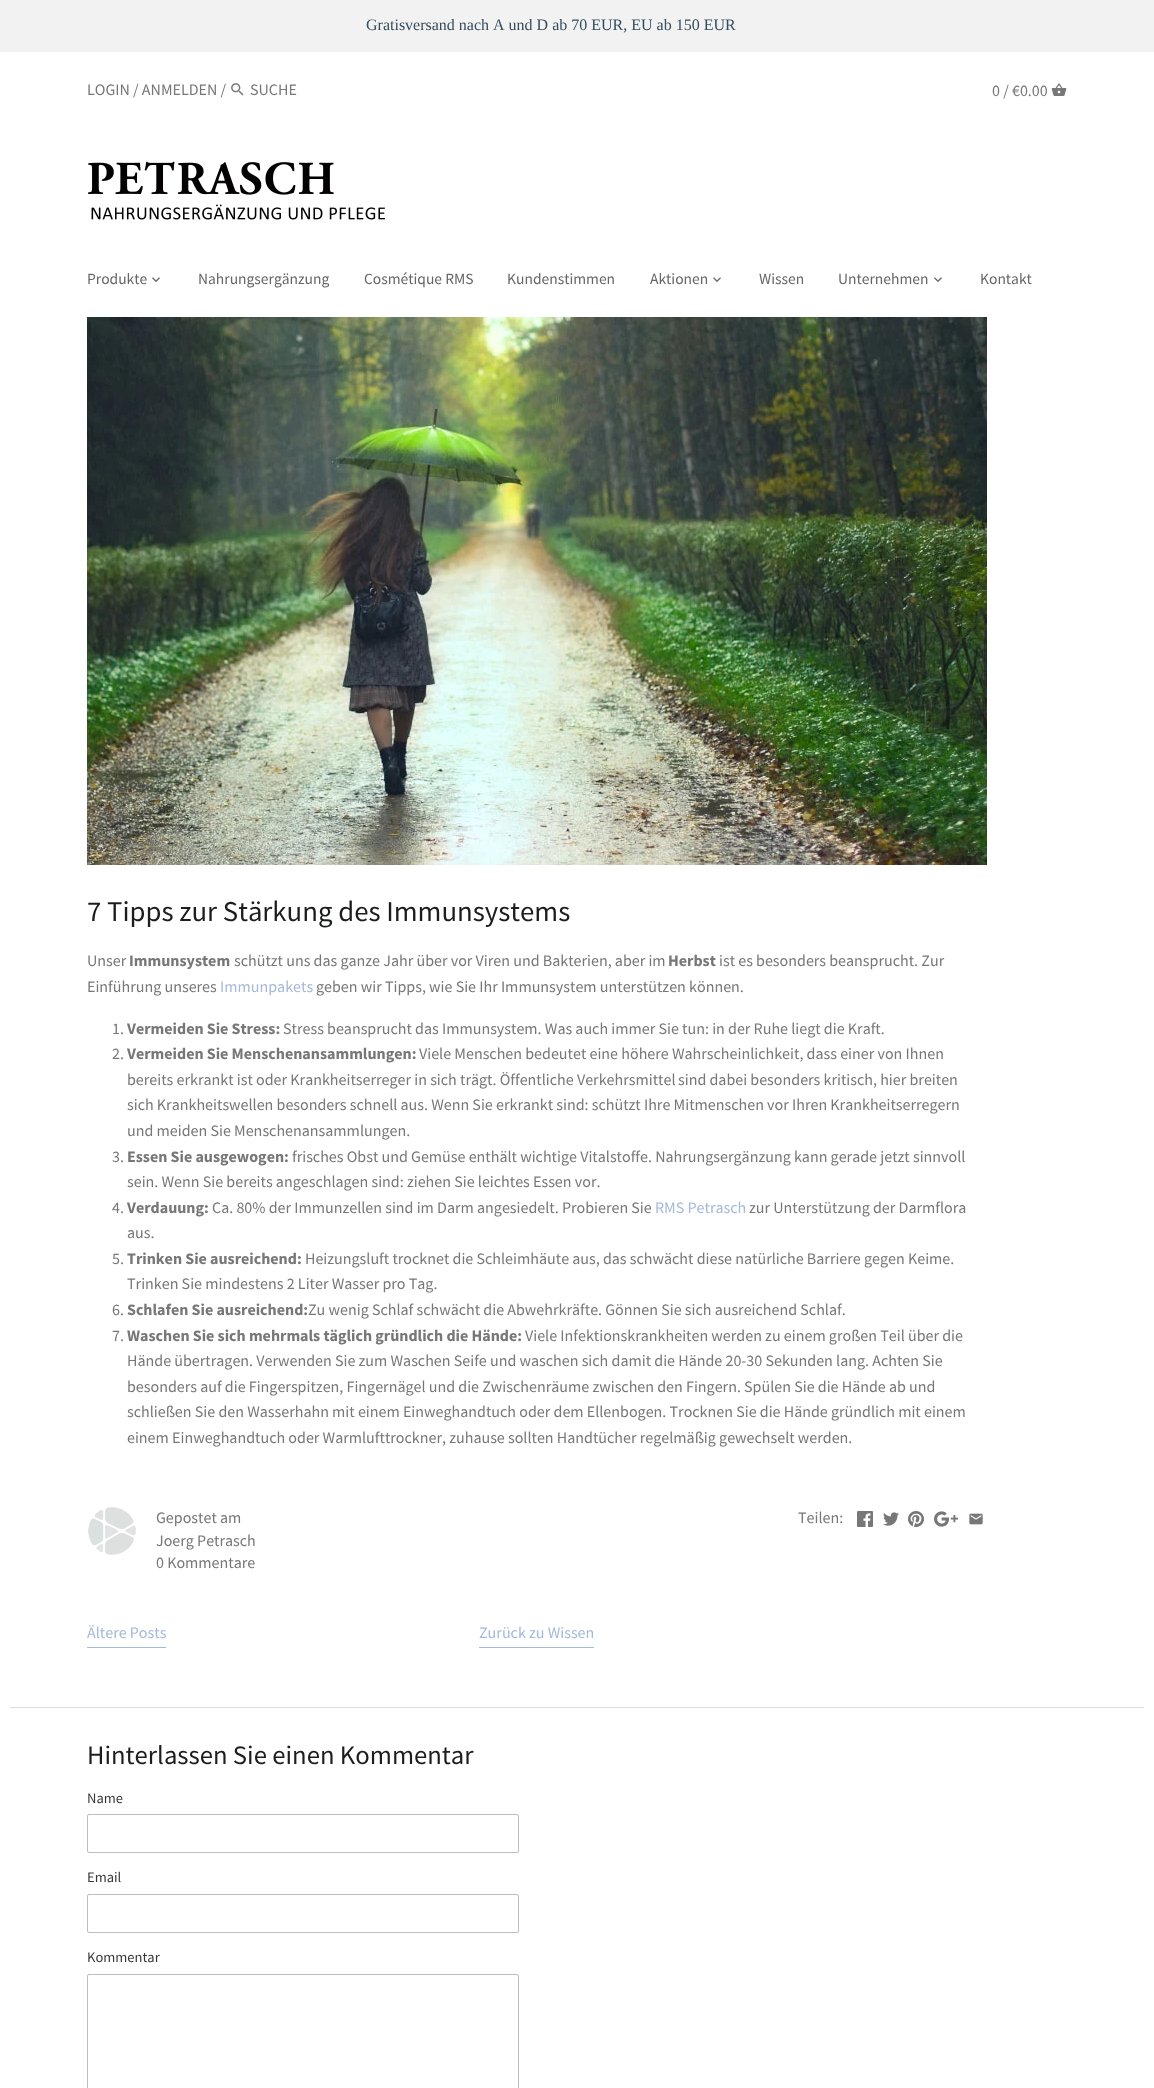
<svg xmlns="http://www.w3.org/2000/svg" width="1154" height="2088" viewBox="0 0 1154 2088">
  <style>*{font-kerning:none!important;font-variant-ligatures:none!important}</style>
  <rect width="100%" height="100%" fill="#fff"/>
  <path d="M0 0h1154v52H0z" fill="#f2f2f2"/>
  <image x="231" y="83" width="13" height="13" href="img/1.png"/>
  <image x="1051" y="83" width="16" height="13" href="img/2.png"/>
  <image x="88" y="161" width="297" height="59" href="img/3.png"/>
  <image x="152" y="277" width="8" height="5" href="img/4.png"/>
  <image x="713" y="277" width="8" height="5" href="img/4.png"/>
  <image x="934" y="277" width="8" height="5" href="img/4.png"/>
  <image x="87" y="317" width="900" height="548" href="img/5.png"/>
  <image x="88" y="1507" width="48" height="48" href="img/6.png"/>
  <image x="857" y="1511" width="16" height="16" href="img/7.png"/>
  <image x="883" y="1512" width="16" height="14" href="img/8.png"/>
  <image x="908" y="1511" width="16" height="16" href="img/9.png"/>
  <image x="934" y="1511" width="24" height="16" href="img/10.png"/>
  <image x="969" y="1513" width="14" height="12" href="img/11.png"/>
  <path d="M87 1647h79v1H87z" fill="#a5b9d8"/>
  <path d="M479 1647h115v1H479z" fill="#a5b9d8"/>
  <path d="M10 1707h1134v1H10z" fill="#ddd"/>
  <rect x="87.5" y="1814.5" width="431" height="38" rx="1.5" fill="none" stroke="#bcbcbc"/>
  <rect x="87.5" y="1894.5" width="431" height="38" rx="1.5" fill="none" stroke="#bcbcbc"/>
  <rect x="87.5" y="1974.5" width="431" height="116" rx="1.5" fill="none" stroke="#bcbcbc"/>
  <text x="366" y="30" font-family="Liberation Serif" font-size="16" fill="#354b5e">Gratisversand nach A und D ab 70 EUR, EU ab 150 EUR</text>
  <g font-family="Source Sans Pro" font-size="16" fill="#777">
    <text x="87" y="95">LOGIN / ANMELDEN /</text>
    <text x="250" y="95">SUCHE</text>
    <text x="992" y="96">0 / €0.00</text>
  </g>
  <g font-family="Source Sans Pro" font-size="15.5" fill="#666">
    <text x="87" y="284">Produkte</text>
    <text x="198" y="284">Nahrungsergänzung</text>
    <text x="364" y="284">Cosmétique RMS</text>
    <text x="507" y="284">Kundenstimmen</text>
    <text x="650" y="284">Aktionen</text>
    <text x="759" y="284">Wissen</text>
    <text x="838" y="284">Unternehmen</text>
    <text x="980" y="284">Kontakt</text>
  </g>
  <text x="87" y="921" font-family="Source Sans Pro" font-size="28.75" fill="#1c1d1d">7 Tipps zur Stärkung des Immunsystems</text>
  <text x="87" y="966" font-family="Source Sans Pro" font-size="16" fill="#777">Unser</text>
  <text x="129" y="966" font-family="Source Sans Pro" font-size="16" font-weight="bold" fill="#777">Immunsystem</text>
  <text x="234" y="966" font-family="Source Sans Pro" font-size="16" fill="#777">schützt uns das ganze Jahr über vor Viren und Bakterien, aber im</text>
  <text x="668" y="966" font-family="Source Sans Pro" font-size="16" font-weight="bold" fill="#777">Herbst</text>
  <g font-family="Source Sans Pro" font-size="16" fill="#777">
    <text x="719" y="966">ist es besonders beansprucht. Zur</text>
    <text x="87" y="992">Einführung unseres</text>
  </g>
  <text x="220" y="992" font-family="Source Sans Pro" font-size="16" fill="#a5b9d8">Immunpakets</text>
  <g font-family="Source Sans Pro" font-size="16" fill="#777">
    <text x="316" y="992">geben wir Tipps, wie Sie Ihr Immunsystem unterstützen können.</text>
    <text x="112" y="1034">1.</text>
  </g>
  <text x="127" y="1034" font-family="Source Sans Pro" font-size="16" font-weight="bold" fill="#777">Vermeiden Sie Stress:</text>
  <g font-family="Source Sans Pro" font-size="16" fill="#777">
    <text x="283" y="1034">Stress beansprucht das Immunsystem. Was auch immer Sie tun: in der Ruhe liegt die Kraft.</text>
    <text x="112" y="1059">2.</text>
  </g>
  <text x="127" y="1059" font-family="Source Sans Pro" font-size="16" font-weight="bold" fill="#777">Vermeiden Sie Menschenansammlungen:</text>
  <g font-family="Source Sans Pro" font-size="16" fill="#777">
    <text x="419" y="1059">Viele Menschen bedeutet eine höhere Wahrscheinlichkeit, dass einer von Ihnen</text>
    <text x="127" y="1085">bereits erkrankt ist oder Krankheitserreger in sich trägt. Öffentliche Verkehrsmittel</text>
    <text x="678" y="1085">sind dabei besonders kritisch, hier breiten</text>
    <text x="127" y="1110">sich Krankheitswellen besonders schnell aus. Wenn Sie erkrankt sind: schützt Ihre Mitmenschen vor Ihren Krankheitserregern</text>
    <text x="127" y="1136">und meiden Sie Menschenansammlungen.</text>
    <text x="112" y="1162">3.</text>
  </g>
  <text x="127" y="1162" font-family="Source Sans Pro" font-size="16" font-weight="bold" fill="#777">Essen Sie ausgewogen:</text>
  <g font-family="Source Sans Pro" font-size="16" fill="#777">
    <text x="292" y="1162">frisches Obst und Gemüse enthält wichtige Vitalstoffe. Nahrungsergänzung kann gerade jetzt sinnvoll</text>
    <text x="127" y="1187">sein. Wenn Sie bereits angeschlagen sind: ziehen Sie leichtes Essen vor.</text>
    <text x="112" y="1213">4.</text>
  </g>
  <text x="127" y="1213" font-family="Source Sans Pro" font-size="16" font-weight="bold" fill="#777">Verdauung:</text>
  <text x="212" y="1213" font-family="Source Sans Pro" font-size="16" fill="#777">Ca. 80% der Immunzellen sind im Darm angesiedelt. Probieren Sie</text>
  <text x="655" y="1213" font-family="Source Sans Pro" font-size="16" fill="#a5b9d8">RMS Petrasch</text>
  <g font-family="Source Sans Pro" font-size="16" fill="#777">
    <text x="749" y="1213">zur Unterstützung der Darmflora</text>
    <text x="127" y="1238">aus.</text>
    <text x="112" y="1264">5.</text>
  </g>
  <text x="127" y="1264" font-family="Source Sans Pro" font-size="16" font-weight="bold" fill="#777">Trinken Sie ausreichend:</text>
  <g font-family="Source Sans Pro" font-size="16" fill="#777">
    <text x="305" y="1264">Heizungsluft trocknet die Schleimhäute aus, das schwächt diese natürliche Barriere gegen Keime.</text>
    <text x="127" y="1289">Trinken Sie mindestens 2 Liter Wasser pro Tag.</text>
    <text x="112" y="1315">6.</text>
  </g>
  <text x="127" y="1315" font-family="Source Sans Pro" font-size="16" font-weight="bold" fill="#777">Schlafen Sie ausreichend:</text>
  <g font-family="Source Sans Pro" font-size="16" fill="#777">
    <text x="308" y="1315"> Zu wenig Schlaf schwächt die Abwehrkräfte. Gönnen Sie sich ausreichend Schlaf.</text>
    <text x="112" y="1341">7.</text>
  </g>
  <text x="127" y="1341" font-family="Source Sans Pro" font-size="16" font-weight="bold" fill="#777">Waschen Sie sich mehrmals täglich gründlich die Hände:</text>
  <g font-family="Source Sans Pro" font-size="16" fill="#777">
    <text x="525" y="1341">Viele Infektionskrankheiten werden zu einem großen Teil über die</text>
    <text x="127" y="1366">Hände übertragen. Verwenden Sie zum Waschen Seife und waschen sich damit die Hände 20-30 Sekunden lang. Achten Sie</text>
    <text x="127" y="1392">besonders auf die Fingerspitzen, Fingernägel und die Zwischenräume zwischen den Fingern. Spülen Sie die Hände ab und</text>
    <text x="127" y="1417">schließen Sie den Wasserhahn mit einem Einweghandtuch oder dem Ellenbogen. Trocknen Sie die Hände gründlich mit einem</text>
    <text x="127" y="1443">einem Einweghandtuch oder Warmlufttrockner, zuhause sollten Handtücher regelmäßig gewechselt werden.</text>
    <text x="156" y="1523">Gepostet am</text>
    <text x="156" y="1546">Joerg Petrasch</text>
    <text x="156" y="1568">0 Kommentare</text>
    <text x="798" y="1523">Teilen:</text>
  </g>
  <g font-family="Source Sans Pro" font-size="16" fill="#a5b9d8">
    <text x="87" y="1638">Ältere Posts</text>
    <text x="479" y="1638">Zurück zu Wissen</text>
  </g>
  <text x="87" y="1764" font-family="Source Sans Pro" font-size="26.7" fill="#1c1d1d">Hinterlassen Sie einen Kommentar</text>
  <g font-family="Source Sans Pro" font-size="14.5" fill="#373737">
    <text x="87" y="1803">Name</text>
    <text x="87" y="1882">Email</text>
    <text x="87" y="1962">Kommentar</text>
  </g>
</svg>
